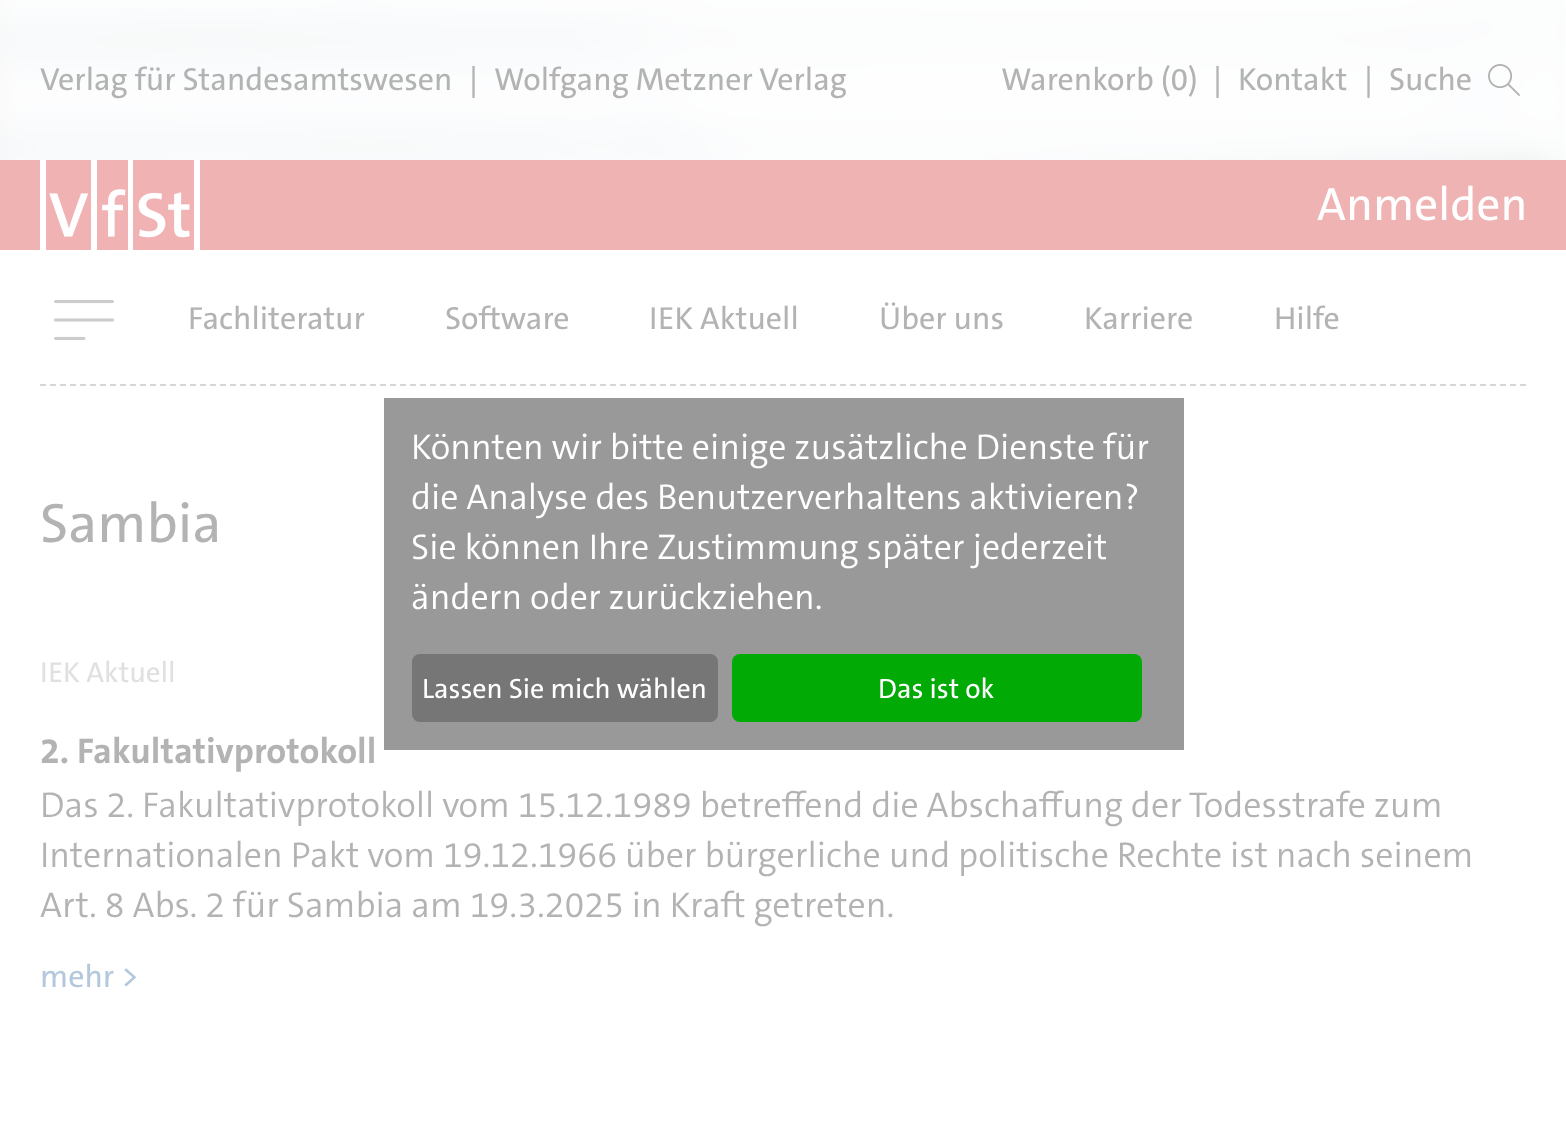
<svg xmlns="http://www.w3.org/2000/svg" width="1566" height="1135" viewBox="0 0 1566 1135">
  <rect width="100%" height="100%" fill="#fff"/>
  <image x="0" y="0" width="1566" height="160" href="img/1.png"/>
  <image x="1488" y="64" width="32" height="32" href="img/2.png"/>
  <path d="M0 160h1566v90H0z" fill="#f0b3b3"/>
  <image x="40" y="160" width="160" height="90" href="img/3.png"/>
  <path d="M40 385H1526" fill="none" stroke="#d6d6d6" stroke-width="2" stroke-dasharray="6 4"/>
  <image x="54" y="300" width="60" height="40" href="img/4.png"/>
  <path d="M384 398h800v352H384z" fill="#999"/>
  <rect x="412" y="654" width="306" height="68" rx="8" fill="#767676"/>
  <rect x="732" y="654" width="410" height="68" rx="8" fill="#02aa05"/>
  <g font-family="'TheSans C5'" font-size="32" font-weight="500" fill="#b3b3b3">
    <text x="40" y="90">Verlag für Standesamtswesen</text>
    <text x="469" y="90">|</text>
    <text x="494" y="90">Wolfgang Metzner Verlag</text>
    <text x="1001" y="90">Warenkorb (0)</text>
    <text x="1213" y="90">|</text>
    <text x="1238" y="90">Kontakt</text>
    <text x="1364" y="90">|</text>
    <text x="1389" y="90">Suche</text>
  </g>
  <text x="1317" y="220" font-family="'TheSans C5'" font-size="47" font-weight="500" fill="#fff">Anmelden</text>
  <g font-family="'TheSans C5'" font-size="32" font-weight="500" fill="#b3b3b3">
    <text x="188" y="329">Fachliteratur</text>
    <text x="445" y="329">Software</text>
    <text x="649" y="329">IEK Aktuell</text>
    <text x="879" y="329">Über uns</text>
    <text x="1084" y="329">Karriere</text>
    <text x="1274" y="329">Hilfe</text>
  </g>
  <text x="40" y="542" font-family="'TheSans C5'" font-size="56" font-weight="500" fill="#b3b3b3">Sambia</text>
  <text x="40" y="682" font-family="'TheSans C5'" font-size="29" font-weight="500" fill="#e0e0e0">IEK Aktuell</text>
  <text x="40" y="763" font-family="'TheSans C5'" font-size="36" font-weight="bold" fill="#b3b3b3">2. Fakultativprotokoll</text>
  <g font-family="'TheSans C5'" font-size="36" font-weight="300" fill="#b3b3b3">
    <text x="40" y="817">Das 2. Fakultativprotokoll vom 15.12.1989 betreffend die Abschaffung der Todesstrafe zum</text>
    <text x="40" y="867">Internationalen Pakt vom 19.12.1966 über bürgerliche und politische Rechte ist nach seinem</text>
    <text x="40" y="917">Art. 8 Abs. 2 für Sambia am 19.3.2025 in Kraft getreten.</text>
  </g>
  <text x="40" y="987" font-family="'TheSans C5'" font-size="32" font-weight="500" fill="#b3c7dd">mehr &gt;</text>
  <g font-family="'TheSans C5'" font-size="36" font-weight="300" fill="#fff">
    <text x="411" y="459">Könnten wir bitte einige zusätzliche Dienste für</text>
    <text x="411" y="509">die Analyse des Benutzerverhaltens aktivieren?</text>
    <text x="411" y="559">Sie können Ihre Zustimmung später jederzeit</text>
    <text x="411" y="609">ändern oder zurückziehen.</text>
  </g>
  <g font-family="'TheSans C5'" font-size="28" font-weight="500" fill="#fff">
    <text x="422" y="698">Lassen Sie mich wählen</text>
    <text x="878" y="698">Das ist ok</text>
  </g>
</svg>
